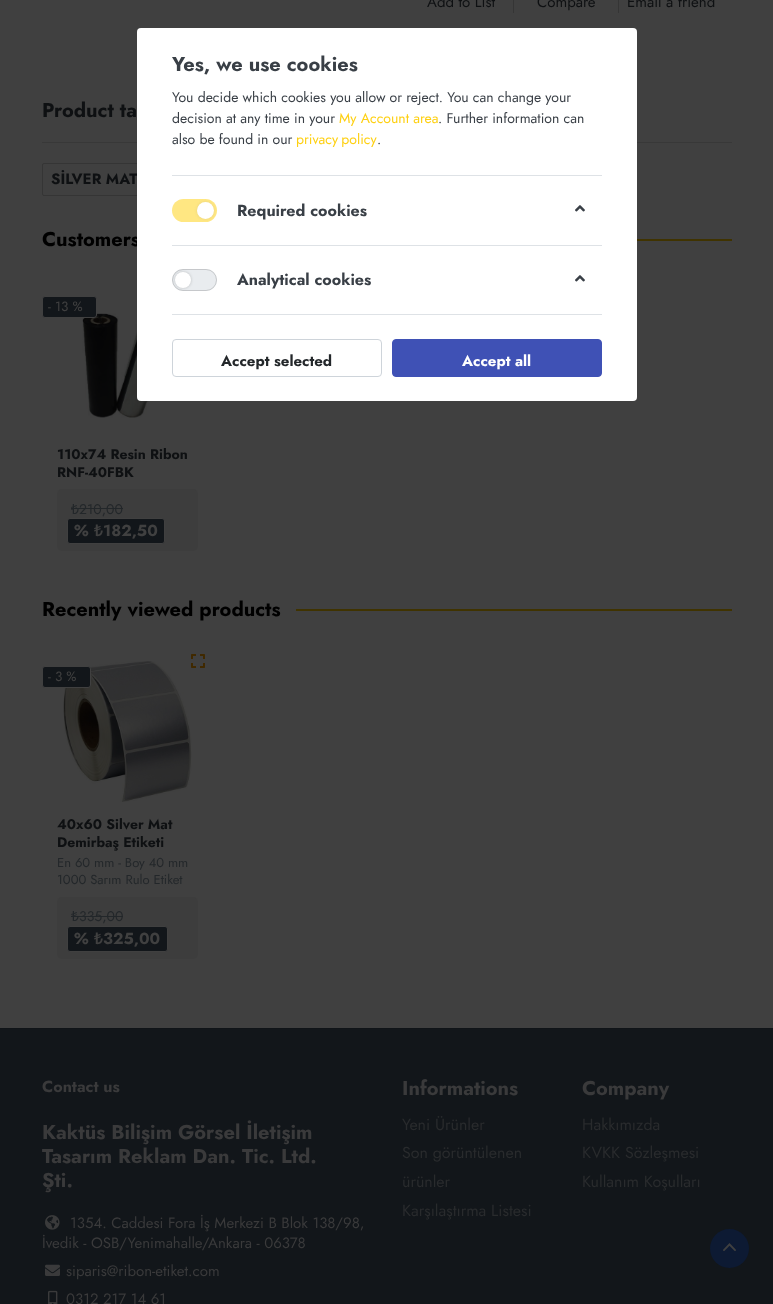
<svg xmlns="http://www.w3.org/2000/svg" width="773" height="1304" viewBox="0 0 773 1304">
  <rect width="100%" height="100%" fill="#404040"/>
  <path d="M513 0h1v13H513z" fill="#353535"/>
  <path d="M618 0h1v13H618z" fill="#353535"/>
  <path d="M42 142h690v1H42z" fill="#383838"/>
  <rect x="42.5" y="163.5" width="171" height="32" rx="1.5" fill="none" stroke="#353535"/>
  <path d="M637 239h95v2H637z" fill="#403300"/>
  <image x="82" y="313" width="94" height="105" href="img/1.png"/>
  <rect x="42.5" y="296.5" width="54" height="21" rx="2.5" fill="#12161a" stroke="#404040"/>
  <rect x="57" y="489" width="141" height="62" rx="5" fill="#3d3d3d"/>
  <path d="M71 508h52v1H71z" fill="#23272a"/>
  <rect x="67.5" y="518.5" width="97" height="25" rx="2.5" fill="#12161a" stroke="#404040"/>
  <path d="M296 609h436v2H296z" fill="#403300"/>
  <image x="63" y="661" width="129" height="141" href="img/2.png"/>
  <rect x="42.5" y="666.5" width="48" height="21" rx="2.5" fill="#12161a" stroke="#404040"/>
  <image x="191" y="654" width="14" height="14" href="img/3.png"/>
  <rect x="57" y="897" width="141" height="62" rx="5" fill="#3d3d3d"/>
  <path d="M71 916h52v1H71z" fill="#23272a"/>
  <rect x="67.5" y="926.5" width="100" height="25" rx="2.5" fill="#12161a" stroke="#404040"/>
  <path d="M0 1029h773v275H0z" fill="#12161a"/>
  <path d="M0 1028h773v1H0z" fill="#101418"/>
  <image x="45" y="1215" width="15" height="15" href="img/4.png"/>
  <image x="45" y="1264" width="15" height="12" href="img/5.png"/>
  <image x="48" y="1290" width="10" height="14" href="img/6.png"/>
  <circle cx="729.5" cy="1248.5" r="19.5" fill="#0d1a33"/>
  <image x="723" y="1243" width="13" height="8" href="img/7.png"/>
  <g font-family="Jost" font-size="15" fill="#0e1012">
    <text x="427" y="7">Add to List</text>
    <text x="537" y="7">Compare</text>
    <text x="627" y="7">Email a friend</text>
  </g>
  <text x="42" y="117" font-family="Jost" font-size="20" font-weight="bold" fill="#0e1012">Product ta</text>
  <text x="51" y="184" font-family="Jost" font-size="15" font-weight="bold" fill="#0e1012">SİLVER MAT</text>
  <text x="42" y="246" font-family="Jost" font-size="20" font-weight="bold" fill="#000">Customers</text>
  <text x="48" y="311" font-family="Jost" font-size="13.5" fill="#404040">- 13 %</text>
  <g font-family="Jost" font-size="14" font-weight="bold" fill="#0e1012">
    <text x="57" y="459">110x74 Resin Ribon</text>
    <text x="57" y="477">RNF-40FBK</text>
  </g>
  <text x="71" y="514" font-family="Noto Sans" font-size="14" fill="#23272a">₺</text>
  <text x="79" y="514" font-family="Jost" font-size="14" fill="#23272a">210,00</text>
  <text x="74" y="536" font-family="Jost" font-size="16" font-weight="bold" fill="#404040">%</text>
  <text x="94" y="536" font-family="Noto Sans" font-size="16" font-weight="600" fill="#404040">₺</text>
  <text x="103" y="536" font-family="Jost" font-size="16" font-weight="bold" fill="#404040">182,50</text>
  <text x="42" y="616" font-family="Jost" font-size="20" font-weight="bold" fill="#000">Recently viewed products</text>
  <text x="48" y="681" font-family="Jost" font-size="13.5" fill="#404040">- 3 %</text>
  <g font-family="Jost" font-size="14" font-weight="bold" fill="#0e1012">
    <text x="57" y="829">40x60 Silver Mat</text>
    <text x="57" y="847">Demirbaş Etiketi</text>
  </g>
  <g font-family="Jost" font-size="13" fill="#23272a">
    <text x="57" y="867">En 60 mm - Boy 40 mm</text>
    <text x="57" y="884">1000 Sarım Rulo Etiket</text>
  </g>
  <text x="71" y="921" font-family="Noto Sans" font-size="14" fill="#23272a">₺</text>
  <text x="79" y="921" font-family="Jost" font-size="14" fill="#23272a">335,00</text>
  <text x="74" y="944" font-family="Jost" font-size="16" font-weight="bold" fill="#404040">%</text>
  <text x="94" y="944" font-family="Noto Sans" font-size="16" font-weight="600" fill="#404040">₺</text>
  <text x="103" y="944" font-family="Jost" font-size="16" font-weight="bold" fill="#404040">325,00</text>
  <text x="42" y="1092" font-family="Jost" font-size="16" font-weight="bold" fill="#3a3a3b">Contact us</text>
  <g font-family="Jost" font-size="20" font-weight="bold" fill="#3a3a3b">
    <text x="42" y="1139">Kaktüs Bilişim Görsel İletişim</text>
    <text x="42" y="1163">Tasarım Reklam Dan. Tic. Ltd.</text>
    <text x="42" y="1187">Şti.</text>
  </g>
  <g font-family="Jost" font-size="15" fill="#3a3a3b">
    <text x="70" y="1228">1354. Caddesi Fora İş Merkezi B Blok 138/98,</text>
    <text x="42" y="1248">İvedik - OSB/Yenimahalle/Ankara - 06378</text>
    <text x="66" y="1276">siparis@ribon-etiket.com</text>
    <text x="66" y="1304">0312 217 14 61</text>
  </g>
  <text x="402" y="1095" font-family="Jost" font-size="20" font-weight="bold" fill="#3a3a3b">Informations</text>
  <g font-family="Jost" font-size="16" fill="#292b2d">
    <text x="402" y="1130">Yeni Ürünler</text>
    <text x="402" y="1158">Son görüntülenen</text>
    <text x="402" y="1187">ürünler</text>
    <text x="402" y="1216">Karşılaştırma Listesi</text>
  </g>
  <text x="582" y="1095" font-family="Jost" font-size="20" font-weight="bold" fill="#3a3a3b">Company</text>
  <g font-family="Jost" font-size="16" fill="#292b2d">
    <text x="582" y="1130">Hakkımızda</text>
    <text x="582" y="1158">KVKK Sözleşmesi</text>
    <text x="582" y="1187">Kullanım Koşulları</text>
  </g>
  <rect x="137" y="28" width="500" height="373" rx="4" fill="#fff"/>
  <text x="172" y="71" font-family="Jost" font-size="20" font-weight="bold" fill="#393f46">Yes, we use cookies</text>
  <g font-family="Jost" font-size="14" fill="#393f46">
    <text x="172" y="102">You decide which cookies you allow or reject. You can change your</text>
    <text x="172" y="123">decision at any time in your</text>
  </g>
  <text x="339" y="123" font-family="Jost" font-size="14" fill="#fed012">My Account area</text>
  <g font-family="Jost" font-size="14" fill="#393f46">
    <text x="438" y="123">. Further information can</text>
    <text x="172" y="144">also be found in our</text>
  </g>
  <text x="296" y="144" word-spacing="-1" font-family="Jost" font-size="14" fill="#fed012">privacy policy</text>
  <text x="377" y="144" font-family="Jost" font-size="14" fill="#393f46">.</text>
  <path d="M172 175h430v1H172z" fill="#dee2e6"/>
  <path d="M172 245h430v1H172z" fill="#dee2e6"/>
  <rect x="172" y="199" width="45" height="23" rx="11.5" fill="#ffe782"/>
  <rect x="197" y="202" width="17" height="17" rx="8.5" fill="#80808033" filter="blur(1.5px)"/>
  <circle cx="205.5" cy="210.5" r="8.5" fill="#fff"/>
  <text x="237" y="216" font-family="Jost" font-size="16" font-weight="bold" fill="#393f46">Required cookies</text>
  <image x="575" y="205" width="10" height="7" href="img/8.png"/>
  <path d="M172 314h430v1H172z" fill="#dee2e6"/>
  <rect x="172" y="269" width="45" height="22" rx="11" fill="#e9ecef"/>
  <rect x="172.5" y="269.5" width="44" height="21" rx="10.5" fill="none" stroke="#00000026"/>
  <rect x="175" y="272" width="16" height="16" rx="8" fill="#00000033" filter="blur(1.5px)"/>
  <circle cx="183" cy="280" r="8" fill="#fff"/>
  <text x="237" y="285" font-family="Jost" font-size="16" font-weight="bold" fill="#393f46">Analytical cookies</text>
  <image x="575" y="275" width="10" height="7" href="img/8.png"/>
  <rect x="172.5" y="339.5" width="209" height="37" rx="3.5" fill="none" stroke="#ced4da"/>
  <text x="221" y="366" font-family="Jost" font-size="15" font-weight="bold" fill="#23272a">Accept selected</text>
  <rect x="392.5" y="339.5" width="209" height="37" rx="3.5" fill="#3f51b5" stroke="#3f51b5"/>
  <text x="462" y="366" font-family="Jost" font-size="15" font-weight="bold" fill="#fff">Accept all</text>
</svg>
